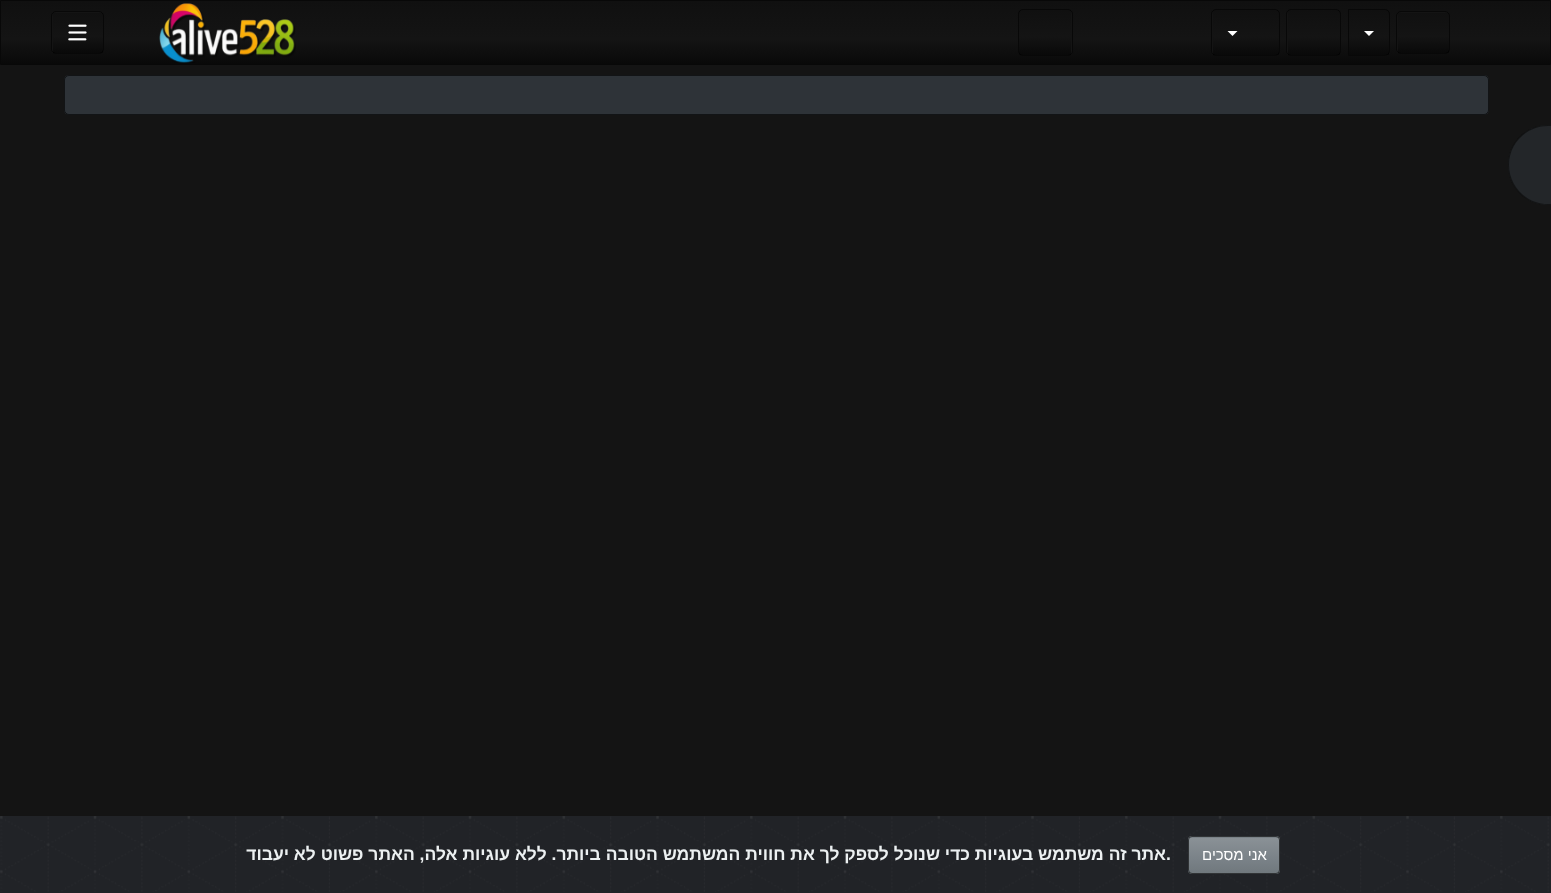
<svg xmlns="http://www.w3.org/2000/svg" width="1551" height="893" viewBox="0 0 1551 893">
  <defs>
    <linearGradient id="g1" gradientUnits="userSpaceOnUse" x1="776" y1="1.2" x2="776" y2="64"><stop offset="0" stop-color="#101010"/><stop offset="0.6" stop-color="#141414"/><stop offset="1" stop-color="#090909"/></linearGradient>
    <linearGradient id="g2" gradientUnits="userSpaceOnUse" x1="1423" y1="12" x2="1423" y2="53"><stop offset="0" stop-color="#101010"/><stop offset="0.6" stop-color="#141414"/><stop offset="1" stop-color="#090909"/></linearGradient>
    <linearGradient id="g3" gradientUnits="userSpaceOnUse" x1="1369" y1="10" x2="1369" y2="55"><stop offset="0" stop-color="#101010"/><stop offset="0.6" stop-color="#141414"/><stop offset="1" stop-color="#090909"/></linearGradient>
    <linearGradient id="g4" gradientUnits="userSpaceOnUse" x1="1314" y1="10" x2="1314" y2="55"><stop offset="0" stop-color="#101010"/><stop offset="0.6" stop-color="#141414"/><stop offset="1" stop-color="#090909"/></linearGradient>
    <linearGradient id="g5" gradientUnits="userSpaceOnUse" x1="1246" y1="10" x2="1246" y2="55"><stop offset="0" stop-color="#101010"/><stop offset="0.6" stop-color="#141414"/><stop offset="1" stop-color="#090909"/></linearGradient>
    <linearGradient id="g6" gradientUnits="userSpaceOnUse" x1="1045" y1="10" x2="1045" y2="55"><stop offset="0" stop-color="#101010"/><stop offset="0.6" stop-color="#141414"/><stop offset="1" stop-color="#090909"/></linearGradient>
    <linearGradient id="g7" gradientUnits="userSpaceOnUse" x1="78" y1="12" x2="78" y2="53"><stop offset="0" stop-color="#101010"/><stop offset="0.6" stop-color="#141414"/><stop offset="1" stop-color="#090909"/></linearGradient>
    <linearGradient id="g8" gradientUnits="userSpaceOnUse" x1="1234" y1="838" x2="1234" y2="873"><stop offset="0" stop-color="#8a9196"/><stop offset="0.6" stop-color="#7a8288"/><stop offset="1" stop-color="#70787d"/></linearGradient>
  </defs>
  <rect width="100%" height="100%" fill="#141414"/>
  <path d="M1 1h1549v63H1z" fill="url(#g1)"/>
  <path d="M0.5 0.5h1550v64H0.5z" fill="none" stroke="#080808"/>
  <rect x="1396" y="11" width="54" height="43" rx="5" fill="#141414"/>
  <path d="M1398 13h51v40H1398z" fill="url(#g2)"/>
  <rect x="1396.5" y="11.5" width="53" height="42" rx="4.5" fill="none" stroke="#00000099"/>
  <path d="M1348 9H1385C1388 9 1390 11 1390 14V51C1390 54 1388 56 1385 56H1348Z" fill="#141414"/>
  <path d="M1349 10h40v45H1349z" fill="url(#g3)"/>
  <path d="M1348.5 9.5H1385C1387.5 9.5 1389.5 11.5 1389.5 14V51C1389.5 53.5 1387.5 55.5 1385 55.5H1348.5Z" fill="none" stroke="#00000099"/>
  <path d="M1364 31H1374L1369 36Z" fill="#fff"/>
  <rect x="1286" y="9" width="55" height="47" rx="5" fill="#141414"/>
  <path d="M1288 10h52v45H1288z" fill="url(#g4)"/>
  <rect x="1286.5" y="9.5" width="54" height="46" rx="4.5" fill="none" stroke="#00000099"/>
  <rect x="1211" y="9" width="69" height="47" rx="5" fill="#141414"/>
  <path d="M1213 10h66v45H1213z" fill="url(#g5)"/>
  <rect x="1211.5" y="9.5" width="68" height="46" rx="4.5" fill="none" stroke="#00000099"/>
  <path d="M1227.5 31H1237.5L1232.5 36Z" fill="#fff"/>
  <rect x="1018" y="9" width="55" height="47" rx="5" fill="#141414"/>
  <path d="M1019 10h52v45H1019z" fill="url(#g6)"/>
  <rect x="1018.5" y="9.5" width="54" height="46" rx="4.5" fill="none" stroke="#00000099"/>
  <image x="159" y="3" width="137" height="60" href="img/1.png"/>
  <rect x="51" y="11" width="53" height="43" rx="5" fill="#141414"/>
  <path d="M53 13h50v40H53z" fill="url(#g7)"/>
  <rect x="51.5" y="11.5" width="52" height="42" rx="4.5" fill="none" stroke="#00000099"/>
  <image x="68" y="24" width="19" height="17" href="img/2.png"/>
  <rect x="64" y="75" width="1425" height="40" rx="5" fill="#2e3338"/>
  <rect x="64.5" y="75.5" width="1424" height="39" rx="4.5" fill="none" stroke="#00000099"/>
  <path d="M1548 125H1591V205H1548C1526 205 1508 187 1508 165C1508 143 1526 125 1548 125Z" fill="#232629"/>
  <path d="M1548 125H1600V205H1548C1525 205 1508 187 1508 165C1508 143 1525 125 1548 125ZM1548 126H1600V204H1548C1526 204 1509 186 1509 165C1509 144 1526 126 1548 126Z" fill="#0a0a0a99" fill-rule="evenodd"/>
  <path d="M0 816h1551v77H0z" fill="#212327"/>
  <image x="0" y="816" width="1550" height="76" href="img/3.png"/>
  <rect x="1188" y="836" width="92" height="38" rx="4" fill="#7a8288"/>
  <path d="M1189 838h90v35H1189z" fill="url(#g8)"/>
  <rect x="1188.5" y="836.5" width="91" height="37" rx="3.5" fill="none" stroke="#00000099"/>
  <text x="1267" y="860" font-family="Liberation Sans" font-size="15" direction="rtl" fill="#fff">אני מסכים</text>
  <text x="1166" y="860" font-family="Liberation Sans" font-size="17.5" font-weight="bold" fill="#ecf0f1">.</text>
  <g font-family="Liberation Sans" font-size="17.5" font-weight="bold" direction="rtl" fill="#ecf0f1">
    <text x="1166" y="860">אתר זה משתמש בעוגיות</text>
    <text x="970" y="860">כדי שנוכל לספק לך את חווית המשתמש הטובה ביותר. ללא עוגיות אלה, האתר פשוט לא יעבוד</text>
  </g>
</svg>
